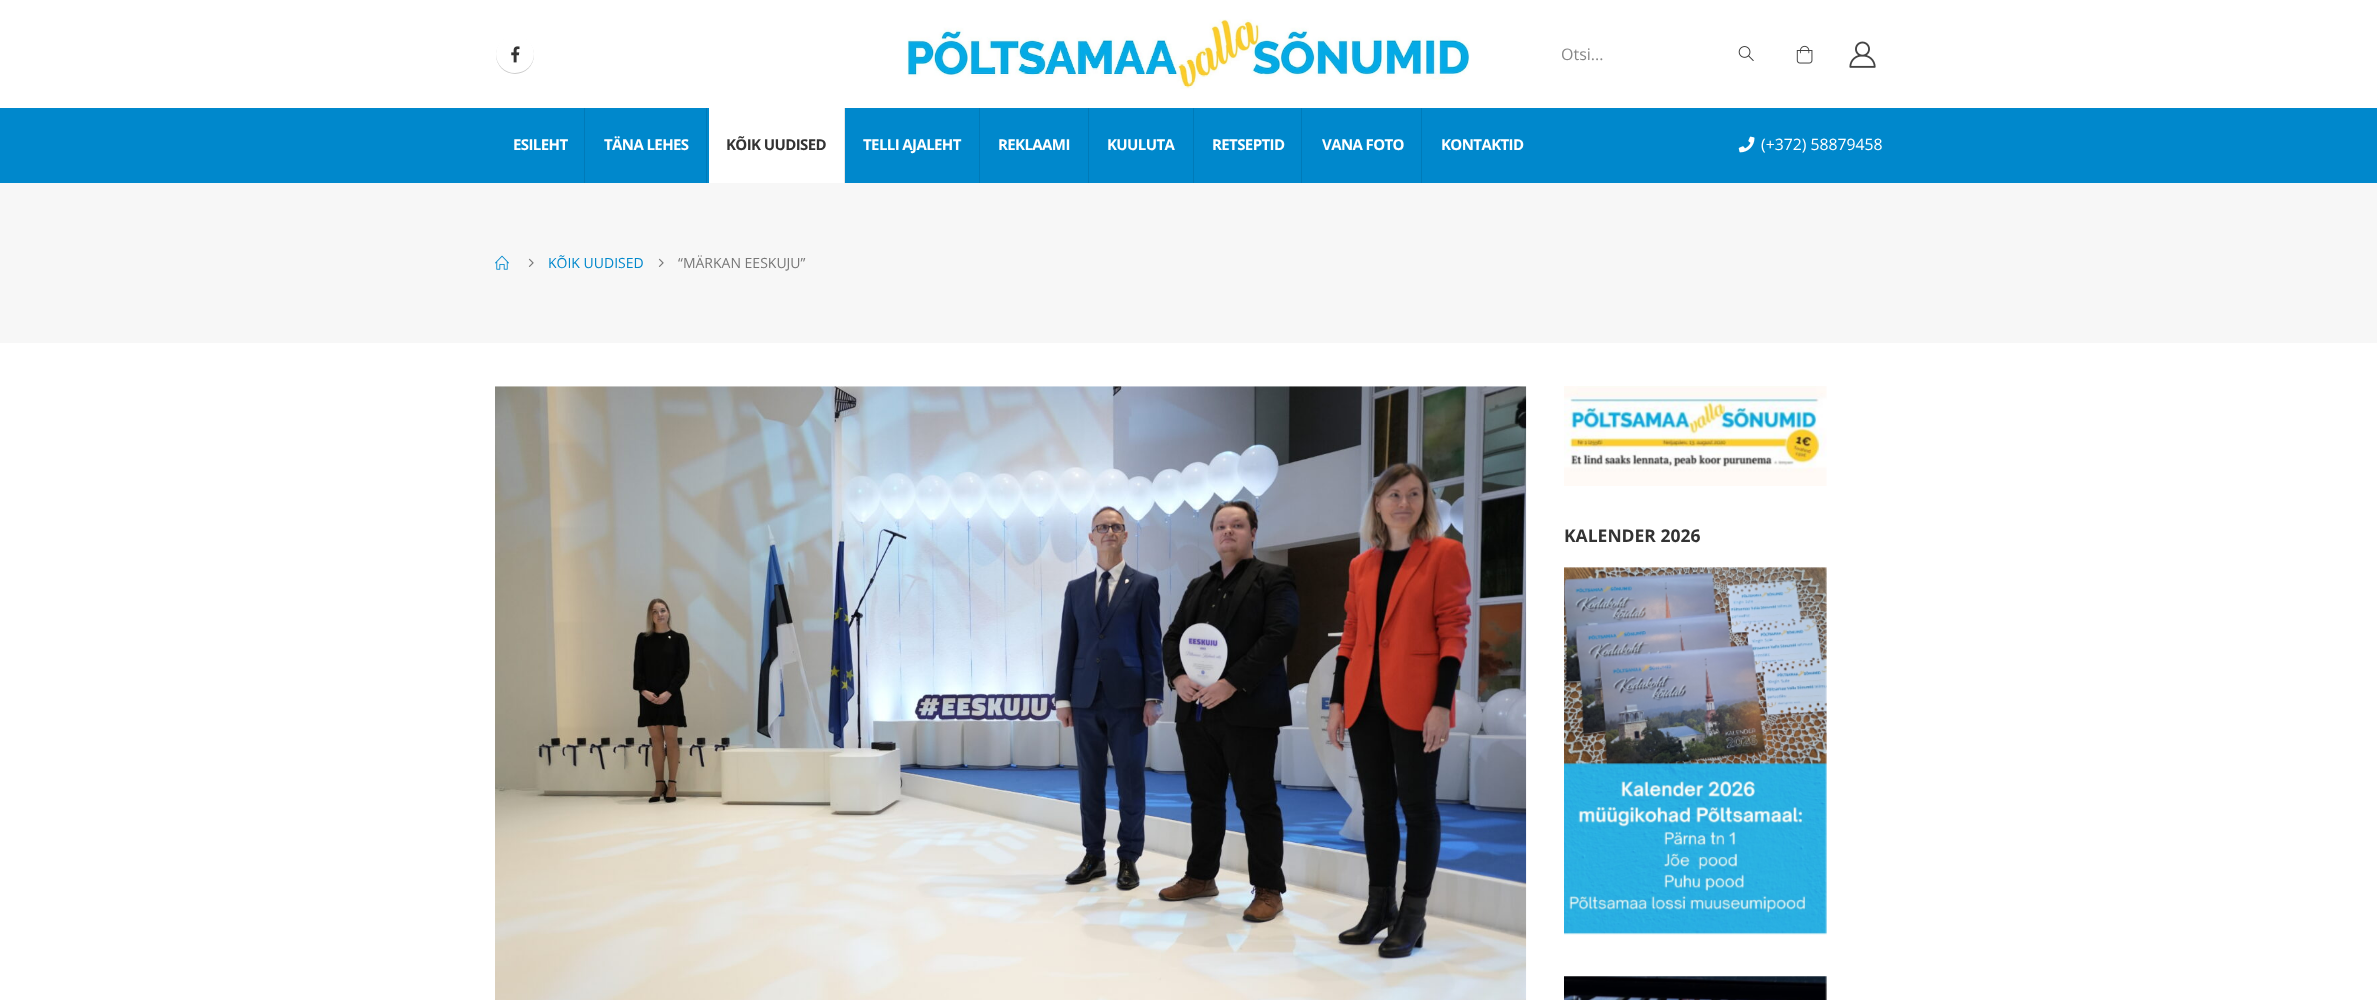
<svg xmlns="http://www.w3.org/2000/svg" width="2377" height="1000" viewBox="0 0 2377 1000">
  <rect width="100%" height="100%" fill="#fff"/>
  <rect x="496" y="36" width="38" height="38" rx="19" fill="#00000033" filter="blur(0.5px)"/>
  <circle cx="515" cy="54" r="19" fill="#fff"/>
  <image x="511" y="46" width="9" height="17" href="img/1.png"/>
  <image x="907" y="19" width="563" height="70" href="img/2.png"/>
  <image x="1738" y="46" width="16" height="15" href="img/3.png"/>
  <image x="1796" y="45" width="17" height="19" href="img/4.png"/>
  <image x="1849" y="41" width="27" height="27" href="img/5.png"/>
  <path d="M0 108h2377v75H0z" fill="#08c"/>
  <path d="M584 108h1v75H584z" fill="#007ab8"/>
  <path d="M706 108h1v75H706z" fill="#007ab8"/>
  <path d="M709 108h135v75H709z" fill="#fff"/>
  <path d="M844 108h1v75H844z" fill="#e6e6e6"/>
  <path d="M979 108h1v75H979z" fill="#007ab8"/>
  <path d="M1088 108h1v75H1088z" fill="#007ab8"/>
  <path d="M1193 108h1v75H1193z" fill="#007ab8"/>
  <path d="M1301 108h1v75H1301z" fill="#007ab8"/>
  <path d="M1421 108h1v75H1421z" fill="#007ab8"/>
  <image x="1738" y="136" width="17" height="17" href="img/6.png"/>
  <path d="M0 183h2377v160H0z" fill="#f7f7f7"/>
  <image x="495" y="255" width="14" height="15" href="img/7.png"/>
  <image x="528" y="258" width="6" height="9" href="img/8.png"/>
  <image x="658" y="258" width="6" height="9" href="img/8.png"/>
  <image x="495" y="386" width="1032" height="614" href="img/9.png"/>
  <image x="1564" y="386" width="263" height="100" href="img/10.png"/>
  <image x="1564" y="567" width="263" height="368" href="img/11.png"/>
  <image x="1564" y="976" width="263" height="24" href="img/12.png"/>
  <text x="1561" y="60" font-family="Open Sans" font-size="16" fill="#888">Otsi...</text>
  <g font-family="Open Sans" font-size="15" font-weight="bold" letter-spacing="-0.6" fill="#fff">
    <text x="513" y="150">ESILEHT</text>
    <text x="604" y="150">TÄNA LEHES</text>
  </g>
  <text x="726" y="150" font-family="Open Sans" font-size="15" font-weight="bold" letter-spacing="-0.6" fill="#333">KÕIK UUDISED</text>
  <g font-family="Open Sans" font-size="15" font-weight="bold" letter-spacing="-0.6" fill="#fff">
    <text x="863" y="150">TELLI AJALEHT</text>
    <text x="998" y="150">REKLAAMI</text>
    <text x="1107" y="150">KUULUTA</text>
    <text x="1212" y="150">RETSEPTID</text>
    <text x="1322" y="150">VANA FOTO</text>
    <text x="1441" y="150">KONTAKTID</text>
  </g>
  <text x="1761" y="150" font-family="Open Sans" font-size="15.75" fill="#fff">(+372) 58879458</text>
  <text x="548" y="268" font-family="Open Sans" font-size="14" fill="#08c">KÕIK UUDISED</text>
  <text x="678" y="268" font-family="Open Sans" font-size="14" fill="#777">“MÄRKAN EESKUJU”</text>
  <text x="1564" y="542" font-family="Open Sans" font-size="17.5" font-weight="bold" fill="#333">KALENDER 2026</text>
</svg>
